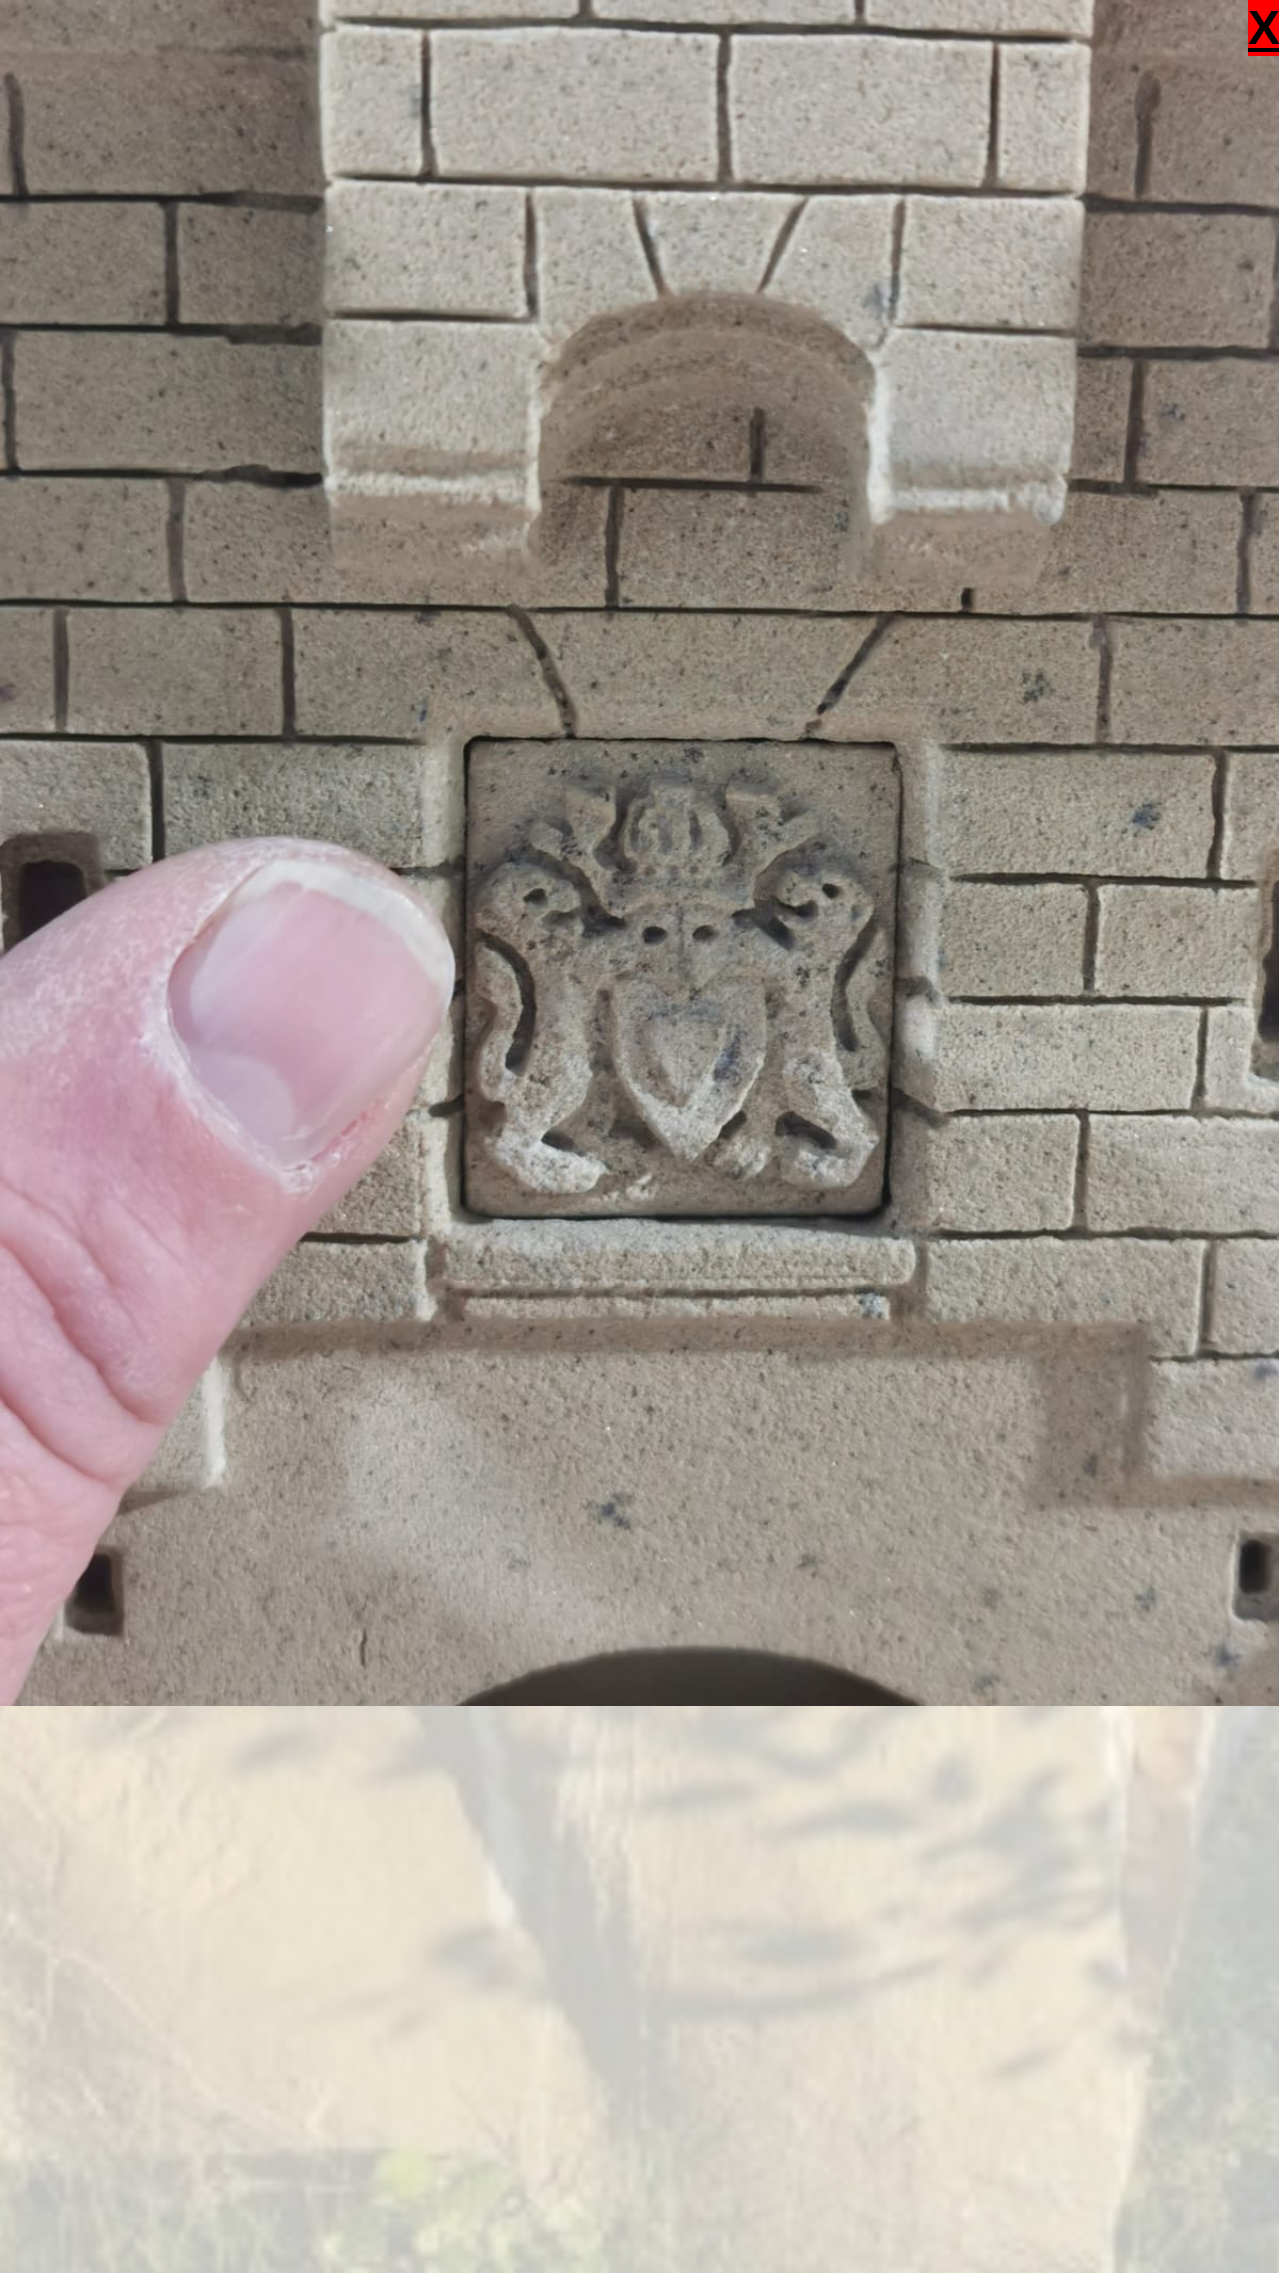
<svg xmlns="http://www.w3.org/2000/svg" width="1279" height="2273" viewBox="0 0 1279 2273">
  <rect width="100%" height="100%" fill="#fff"/>
  <image x="0" y="0" width="1279" height="1706" href="img/1.png"/>
  <path d="M1248 0h31v56H1248z" fill="#f00"/>
  <path d="M1248 48h31v4H1248z" fill="#000"/>
  <image x="0" y="1706" width="1279" height="567" href="img/2.png"/>
  <text x="1248" y="44" font-family="Liberation Sans" font-size="48" font-weight="bold" fill="#000">X</text>
</svg>
